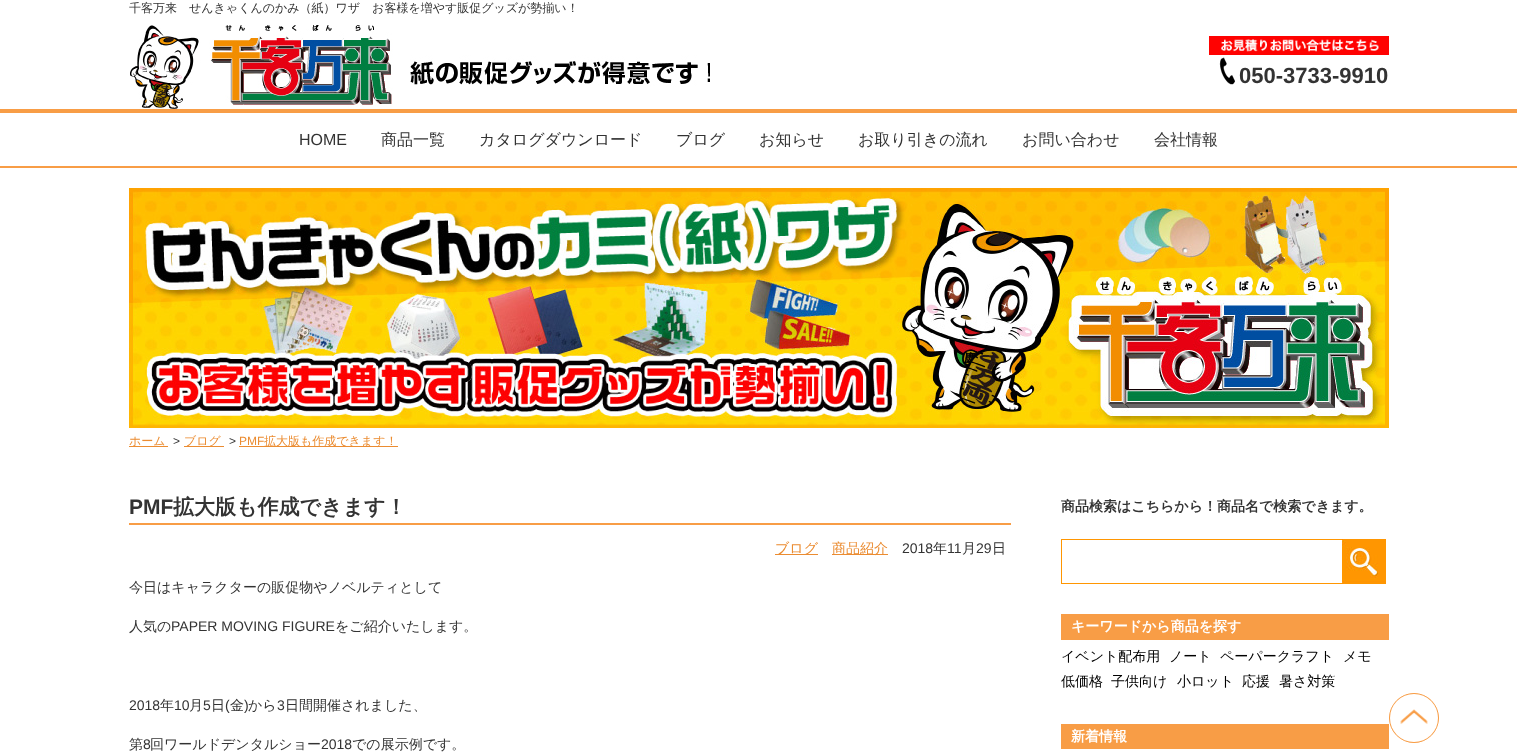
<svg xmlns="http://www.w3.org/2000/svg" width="1517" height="753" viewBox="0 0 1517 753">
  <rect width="100%" height="100%" fill="#fff"/>
  <image x="130" y="25" width="580" height="84" href="img/1.png"/>
  <image x="1209" y="36" width="180" height="19" href="img/2.png"/>
  <image x="1219" y="57" width="16" height="30" href="img/3.png"/>
  <path d="M0 109h1517v4H0z" fill="#f89d46"/>
  <path d="M0 166h1517v2H0z" fill="#f89d46"/>
  <image x="129" y="188" width="1260" height="240" href="img/4.png"/>
  <path d="M129 446h39v1H129z" fill="#eb8c31"/>
  <path d="M184 446h36v1H184z" fill="#eb8c31"/>
  <path d="M220 446h4v1H220z" fill="#eb8c31"/>
  <path d="M239 446h159v1H239z" fill="#eb8c31"/>
  <path d="M129 523h882v2H129z" fill="#f89d46"/>
  <path d="M775 554h43v1H775z" fill="#eb8c31"/>
  <path d="M832 554h56v1H832z" fill="#eb8c31"/>
  <path d="M1061 539h281v1H1061z" fill="#ff9601"/>
  <path d="M1061 583h281v1H1061z" fill="#ff9601"/>
  <path d="M1061 539h1v45H1061z" fill="#ff9601"/>
  <image x="1342" y="539" width="44" height="45" href="img/5.png"/>
  <path d="M1061 614h328v26H1061z" fill="#f89d46"/>
  <path d="M1061 724h328v25H1061z" fill="#f89d46"/>
  <circle cx="1414" cy="718" r="24.5" fill="#f89d46" stroke="#f89d46"/>
  <image x="1390" y="694" width="48" height="48" href="img/6.png"/>
  <text x="129" y="12" font-family="WenQuanYi Zen Hei" font-size="12" font-weight="500" fill="#333">千客万来　せんきゃくんのかみ（紙）ワザ　お客様を増やす販促グッズが勢揃い！</text>
  <text x="1239" y="83" font-family="Liberation Sans" font-size="22" font-weight="bold" fill="#333">050-3733-9910</text>
  <text x="299" y="145" font-family="Liberation Sans" font-size="16" fill="#333">HOME</text>
  <g font-family="WenQuanYi Zen Hei" font-size="16" font-weight="500" fill="#333">
    <text x="381" y="145">商品一覧</text>
    <text x="479" y="145">カタログダウンロード</text>
    <text x="676" y="145">ブログ</text>
    <text x="759" y="145">お知らせ</text>
    <text x="858" y="145">お取り引きの流れ</text>
    <text x="1022" y="145">お問い合わせ</text>
    <text x="1154" y="145">会社情報</text>
  </g>
  <text x="129" y="445" font-family="WenQuanYi Zen Hei" font-size="12" font-weight="500" fill="#eb8c31">ホーム</text>
  <text x="173" y="445" font-family="Liberation Sans" font-size="12" fill="#333">&gt;</text>
  <text x="184" y="445" font-family="WenQuanYi Zen Hei" font-size="12" font-weight="500" fill="#eb8c31">ブログ</text>
  <text x="229" y="445" font-family="Liberation Sans" font-size="12" fill="#333">&gt;</text>
  <text x="239" y="445" font-family="Liberation Sans" font-size="12" fill="#eb8c31">PMF</text>
  <text x="264" y="445" font-family="WenQuanYi Zen Hei" font-size="12" font-weight="500" fill="#eb8c31">拡大版も作成できます！</text>
  <text x="129" y="514" font-family="Liberation Sans" font-size="21" font-weight="bold" fill="#333">PMF</text>
  <text x="173" y="514" font-family="WenQuanYi Zen Hei" font-size="21" font-weight="bold" fill="#333">拡大版も作成できます！</text>
  <g font-family="WenQuanYi Zen Hei" font-size="14" font-weight="500" fill="#eb8c31">
    <text x="775" y="553">ブログ</text>
    <text x="832" y="553">商品紹介</text>
  </g>
  <text x="902" y="553" font-family="Liberation Sans" font-size="14" fill="#333">2018</text>
  <text x="933" y="553" font-family="WenQuanYi Zen Hei" font-size="14" font-weight="500" fill="#333">年</text>
  <text x="947" y="553" font-family="Liberation Sans" font-size="14" fill="#333">11</text>
  <text x="962" y="553" font-family="WenQuanYi Zen Hei" font-size="14" font-weight="500" fill="#333">月</text>
  <text x="976" y="553" font-family="Liberation Sans" font-size="14" fill="#333">29</text>
  <g font-family="WenQuanYi Zen Hei" font-size="14" font-weight="500" fill="#333">
    <text x="992" y="553">日</text>
    <text x="129" y="592">今日はキャラクターの販促物やノベルティとして</text>
    <text x="129" y="631">人気の</text>
  </g>
  <text x="171" y="631" font-family="Liberation Sans" font-size="14" fill="#333">PAPER MOVING FIGURE</text>
  <text x="335" y="631" font-family="WenQuanYi Zen Hei" font-size="14" font-weight="500" fill="#333">をご紹介いたします。</text>
  <text x="129" y="710" font-family="Liberation Sans" font-size="14" fill="#333">2018</text>
  <text x="160" y="710" font-family="WenQuanYi Zen Hei" font-size="14" font-weight="500" fill="#333">年</text>
  <text x="174" y="710" font-family="Liberation Sans" font-size="14" fill="#333">10</text>
  <text x="189" y="710" font-family="WenQuanYi Zen Hei" font-size="14" font-weight="500" fill="#333">月</text>
  <text x="203" y="710" font-family="Liberation Sans" font-size="14" fill="#333">5</text>
  <text x="211" y="710" font-family="WenQuanYi Zen Hei" font-size="14" font-weight="500" fill="#333">日</text>
  <text x="225" y="710" font-family="Liberation Sans" font-size="14" fill="#333">(</text>
  <text x="230" y="710" font-family="WenQuanYi Zen Hei" font-size="14" font-weight="500" fill="#333">金</text>
  <text x="244" y="710" font-family="Liberation Sans" font-size="14" fill="#333">)</text>
  <text x="248" y="710" font-family="WenQuanYi Zen Hei" font-size="14" font-weight="500" fill="#333">から</text>
  <text x="277" y="710" font-family="Liberation Sans" font-size="14" fill="#333">3</text>
  <g font-family="WenQuanYi Zen Hei" font-size="14" font-weight="500" fill="#333">
    <text x="285" y="710">日間開催されました、</text>
    <text x="129" y="749">第</text>
  </g>
  <text x="143" y="749" font-family="Liberation Sans" font-size="14" fill="#333">8</text>
  <text x="150" y="749" font-family="WenQuanYi Zen Hei" font-size="14" font-weight="500" fill="#333">回ワールドデンタルショー</text>
  <text x="321" y="749" font-family="Liberation Sans" font-size="14" fill="#333">2018</text>
  <text x="352" y="749" font-family="WenQuanYi Zen Hei" font-size="14" font-weight="500" fill="#333">での展示例です。</text>
  <text x="1061" y="511" font-family="WenQuanYi Zen Hei" font-size="14" font-weight="bold" fill="#333">商品検索はこちらから！商品名で検索できます。</text>
  <text x="1071" y="631" font-family="WenQuanYi Zen Hei" font-size="14" font-weight="bold" fill="#fff">キーワードから商品を探す</text>
  <g font-family="WenQuanYi Zen Hei" font-size="14" font-weight="500" fill="#000">
    <text x="1061" y="661">イベント配布用</text>
    <text x="1169" y="661">ノート</text>
    <text x="1220" y="661">ペーパークラフト</text>
    <text x="1343" y="661">メモ</text>
    <text x="1061" y="686">低価格</text>
    <text x="1111" y="686">子供向け</text>
    <text x="1177" y="686">小ロット</text>
    <text x="1242" y="686">応援</text>
    <text x="1279" y="686">暑さ対策</text>
  </g>
  <text x="1071" y="741" font-family="WenQuanYi Zen Hei" font-size="14" font-weight="bold" fill="#fff">新着情報</text>
</svg>
